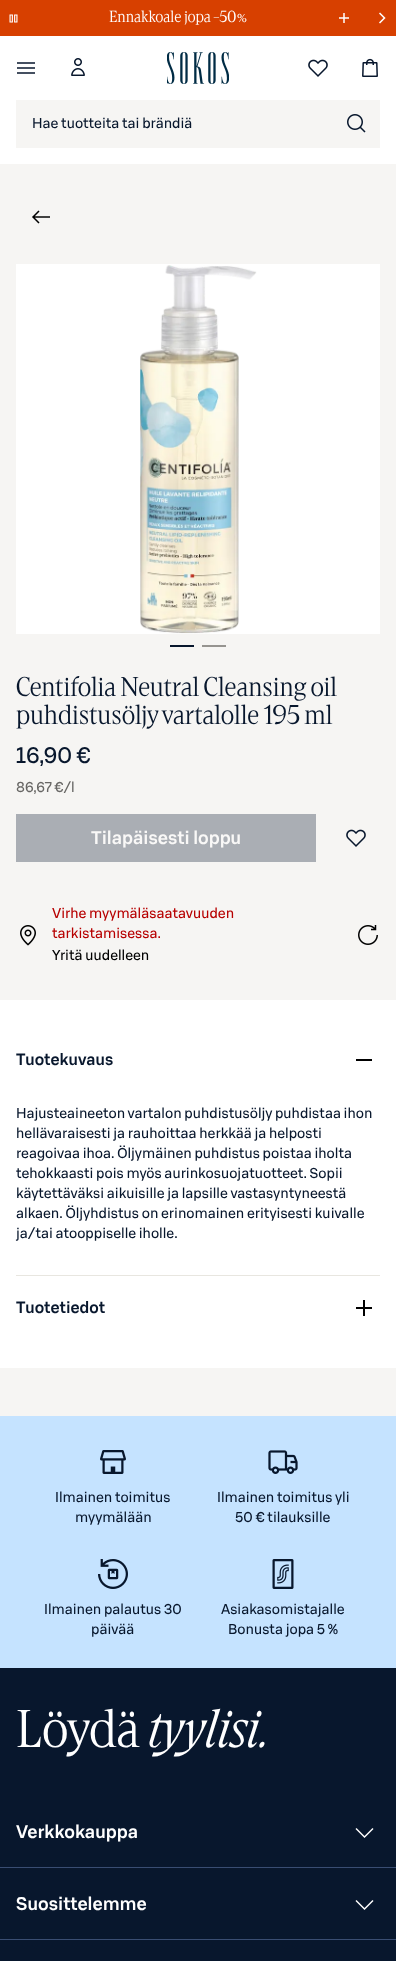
<svg xmlns="http://www.w3.org/2000/svg" width="396" height="1961" viewBox="0 0 396 1961">
  <rect width="100%" height="100%" fill="#fff"/>
  <path d="M0 0h396v36H0z" fill="#d74000"/>
  <image x="9" y="14" width="9" height="9" href="img/1.png"/>
  <image x="339" y="13" width="10" height="10" href="img/2.png"/>
  <image x="379" y="12" width="7" height="12" href="img/3.png"/>
  <image x="17" y="62" width="18" height="12" href="img/4.png"/>
  <image x="71" y="58" width="14" height="18" href="img/5.png"/>
  <image x="167" y="52" width="62" height="32" href="img/6.png"/>
  <image x="308" y="59" width="20" height="18" href="img/7.png"/>
  <image x="362" y="58" width="16" height="19" href="img/8.png"/>
  <path d="M16 100h364v48H16z" fill="#f6f5f3"/>
  <image x="347" y="114" width="19" height="19" href="img/9.png"/>
  <path d="M0 164h396v1252H0z" fill="#f6f5f3"/>
  <image x="32" y="210" width="18" height="14" href="img/10.png"/>
  <path d="M16 264h364v370H16z" fill="#fff"/>
  <image x="140" y="265" width="117" height="369" href="img/11.png"/>
  <path d="M170 645h24v2H170z" fill="#08172d"/>
  <path d="M202 645h24v2H202z" fill="#969490"/>
  <path d="M16 814h300v48H16z" fill="#aaaeb4"/>
  <image x="346" y="829" width="20" height="18" href="img/12.png"/>
  <image x="20" y="925" width="16" height="21" href="img/13.png"/>
  <image x="358" y="925" width="20" height="20" href="img/14.png"/>
  <path d="M0 1000h396v368H0z" fill="#fff"/>
  <path d="M356 1059h16v2H356z" fill="#000"/>
  <path d="M16 1275h364v1H16z" fill="#e8e6e0"/>
  <path d="M356 1307h16v2H356z" fill="#000"/>
  <path d="M363 1300h2v16H363z" fill="#000"/>
  <path d="M0 1668h396v293H0z" fill="#08172d"/>
  <path d="M0 1416h396v252H0z" fill="#c5e3ff"/>
  <image x="100" y="1450" width="26" height="24" href="img/15.png"/>
  <image x="268" y="1450" width="30" height="24" href="img/16.png"/>
  <image x="98" y="1559" width="30" height="30" href="img/17.png"/>
  <image x="272" y="1559" width="22" height="30" href="img/18.png"/>
  <path d="M364.5 1836L372.5 1828L373.5 1829L364.5 1838L355.5 1829L356.5 1828Z" fill="#fff" fill-rule="evenodd"/>
  <path d="M0 1867h396v1H0z" fill="#394d72"/>
  <path d="M364.5 1908L372.5 1900L373.5 1901L364.5 1910L355.5 1901L356.5 1900Z" fill="#fff" fill-rule="evenodd"/>
  <path d="M0 1939h396v1H0z" fill="#394d72"/>
  <text x="109" y="22" font-family="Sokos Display" font-size="16" fill="#fff">Ennakkoale jopa –50%</text>
  <text x="32" y="128" font-family="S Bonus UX" font-size="14" fill="#08172d">Hae tuotteita tai brändiä</text>
  <g font-family="Sokos Display" font-size="27" fill="#08172d">
    <text x="16" y="696">Centifolia Neutral Cleansing oil</text>
    <text x="16" y="724">puhdistusöljy vartalolle 195 ml</text>
  </g>
  <text x="16" y="763" font-family="S Bonus UX" font-size="22" fill="#08172d">16,90 €</text>
  <text x="16" y="792" font-family="S Bonus UX" font-size="14" fill="#676664">86,67 €/l</text>
  <text x="91" y="844" font-family="S Bonus UX" font-size="18" font-weight="500" fill="#f9f8f7">Tilapäisesti loppu</text>
  <g font-family="S Bonus UX" font-size="14" fill="#b70000">
    <text x="52" y="918">Virhe myymäläsaatavuuden</text>
    <text x="52" y="938">tarkistamisessa.</text>
  </g>
  <text x="52" y="960" font-family="S Bonus UX" font-size="14" fill="#000">Yritä uudelleen</text>
  <text x="16" y="1065" font-family="S Bonus UX" font-size="16" font-weight="500" fill="#08172d">Tuotekuvaus</text>
  <g font-family="S Bonus UX" font-size="14" fill="#08172d">
    <text x="16" y="1118">Hajusteaineeton vartalon puhdistusöljy puhdistaa ihon</text>
    <text x="16" y="1138">hellävaraisesti ja rauhoittaa herkkää ja helposti</text>
    <text x="16" y="1158">reagoivaa ihoa. Öljymäinen puhdistus poistaa iholta</text>
    <text x="16" y="1178">tehokkaasti pois myös aurinkosuojatuotteet. Sopii</text>
    <text x="16" y="1198">käytettäväksi aikuisille ja lapsille vastasyntyneestä</text>
    <text x="16" y="1218">alkaen. Öljyhdistus on erinomainen erityisesti kuivalle</text>
    <text x="16" y="1238">ja/tai atooppiselle iholle.</text>
  </g>
  <text x="16" y="1313" font-family="S Bonus UX" font-size="16" font-weight="500" fill="#08172d">Tuotetiedot</text>
  <g font-family="S Bonus UX" font-size="14" fill="#08172d">
    <text x="55" y="1502">Ilmainen toimitus</text>
    <text x="75" y="1522">myymälään</text>
    <text x="217" y="1502">Ilmainen toimitus yli</text>
    <text x="235" y="1522">50 € tilauksille</text>
    <text x="44" y="1614">Ilmainen palautus 30</text>
    <text x="91" y="1634">päivää</text>
    <text x="221" y="1614">Asiakasomistajalle</text>
    <text x="228" y="1634">Bonusta jopa 5 %</text>
  </g>
  <text x="16" y="1747" font-family="Sokos Display" font-size="53" fill="#fff">Löydä</text>
  <text x="148" y="1747" font-family="Sokos Display" font-size="53" font-style="italic" fill="#fff">tyylisi.</text>
  <g font-family="S Bonus UX" font-size="18" font-weight="500" fill="#fff">
    <text x="16" y="1838">Verkkokauppa</text>
    <text x="16" y="1910">Suosittelemme</text>
  </g>
</svg>
